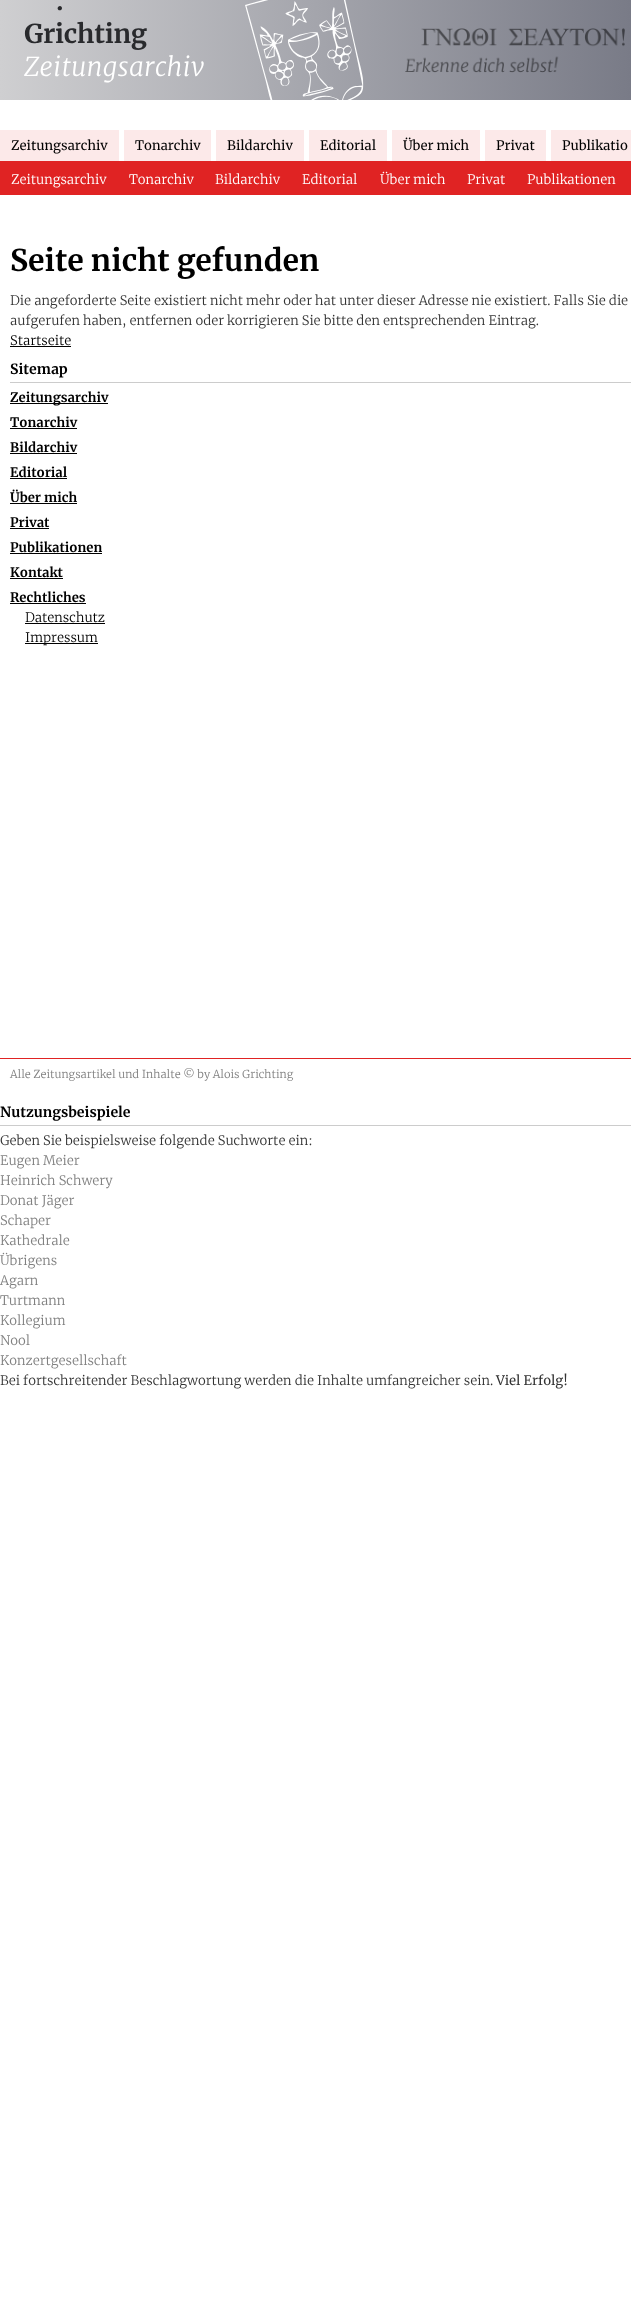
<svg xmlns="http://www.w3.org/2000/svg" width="631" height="2312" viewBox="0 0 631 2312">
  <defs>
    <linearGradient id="g1" gradientUnits="userSpaceOnUse" x1="0" y1="50" x2="631" y2="50"><stop offset="0" stop-color="#cfcfd1"/><stop offset="1" stop-color="#797b87"/></linearGradient>
  </defs>
  <rect width="100%" height="100%" fill="#fff"/>
  <path d="M0 0h631v100H0z" fill="url(#g1)"/>
  <image x="245" y="0" width="119" height="100" href="img/1.png"/>
  <image x="405" y="28" width="220" height="45" href="img/2.png"/>
  <path d="M0 130h119v31H0z" fill="#fce9e9"/>
  <path d="M124 130h87v31H124z" fill="#fce9e9"/>
  <path d="M216 130h88v31H216z" fill="#fce9e9"/>
  <path d="M309 130h78v31H309z" fill="#fce9e9"/>
  <path d="M392 130h88v31H392z" fill="#fce9e9"/>
  <path d="M485 130h61v31H485z" fill="#fce9e9"/>
  <path d="M551 130h80v31H551z" fill="#fce9e9"/>
  <path d="M0 161h631v34H0z" fill="#e02323"/>
  <path d="M10 346h61v1H10z" fill="#000"/>
  <path d="M10 382h621v1H10z" fill="#ccc"/>
  <path d="M10 403h98v1H10z" fill="#000"/>
  <path d="M10 428h67v1H10z" fill="#000"/>
  <path d="M10 453h67v1H10z" fill="#000"/>
  <path d="M10 478h57v1H10z" fill="#000"/>
  <path d="M10 503h67v1H10z" fill="#000"/>
  <path d="M10 528h39v1H10z" fill="#000"/>
  <path d="M10 553h92v1H10z" fill="#000"/>
  <path d="M10 578h53v1H10z" fill="#000"/>
  <path d="M10 603h76v1H10z" fill="#000"/>
  <path d="M25 623h80v1H25z" fill="#000"/>
  <path d="M25 643h73v1H25z" fill="#000"/>
  <path d="M0 1058h631v1H0z" fill="#e02323"/>
  <path d="M0 1125h631v1H0z" fill="#ccc"/>
  <g font-family="Merriweather" font-size="26" font-weight="bold" letter-spacing="-0.25" fill="#292a2d">
    <text x="56" y="10">.</text>
    <text x="24" y="43">Grichting</text>
  </g>
  <text x="24" y="76" font-family="Merriweather" font-size="26" font-weight="300" font-style="italic" letter-spacing="0.25" fill="#fff">Zeitungsarchiv</text>
  <g font-family="Merriweather" font-size="13" fill="#000">
    <text x="11" y="150">Zeitungsarchiv</text>
    <text x="135" y="150">Tonarchiv</text>
    <text x="227" y="150">Bildarchiv</text>
    <text x="320" y="150">Editorial</text>
    <text x="403" y="150">Über mich</text>
    <text x="496" y="150">Privat</text>
    <text x="562" y="150">Publikatio</text>
  </g>
  <g font-family="Merriweather" font-size="13" font-weight="300" fill="#fff">
    <text x="11" y="184">Zeitungsarchiv</text>
    <text x="129" y="184">Tonarchiv</text>
    <text x="215" y="184">Bildarchiv</text>
    <text x="302" y="184">Editorial</text>
    <text x="380" y="184">Über mich</text>
    <text x="467" y="184">Privat</text>
    <text x="527" y="184">Publikationen</text>
  </g>
  <text x="10" y="271" font-family="Merriweather" font-size="30" font-weight="bold" fill="#000">Seite nicht gefunden</text>
  <g font-family="Merriweather" font-size="13" font-weight="300" fill="#333">
    <text x="10" y="305">Die angeforderte Seite existiert nicht mehr oder hat unter dieser Adresse nie existiert. Falls Sie die</text>
    <text x="10" y="325">aufgerufen haben, entfernen oder korrigieren Sie bitte den entsprechenden Eintrag.</text>
  </g>
  <text x="10" y="345" font-family="Merriweather" font-size="13" font-weight="300" fill="#000">Startseite</text>
  <text x="10" y="374" font-family="Merriweather" font-size="14" font-weight="bold" fill="#000">Sitemap</text>
  <g font-family="Merriweather" font-size="13" font-weight="bold" fill="#000">
    <text x="10" y="402">Zeitungsarchiv</text>
    <text x="10" y="427">Tonarchiv</text>
    <text x="10" y="452">Bildarchiv</text>
    <text x="10" y="477">Editorial</text>
    <text x="10" y="502">Über mich</text>
    <text x="10" y="527">Privat</text>
    <text x="10" y="552">Publikationen</text>
    <text x="10" y="577">Kontakt</text>
    <text x="10" y="602">Rechtliches</text>
  </g>
  <g font-family="Merriweather" font-size="13" font-weight="300" fill="#000">
    <text x="25" y="622">Datenschutz</text>
    <text x="25" y="642">Impressum</text>
  </g>
  <text x="10" y="1078" font-family="Merriweather" font-size="11" font-weight="300" fill="#808080">Alle Zeitungsartikel und Inhalte © by Alois Grichting</text>
  <text x="0" y="1117" font-family="Merriweather" font-size="14" font-weight="bold" fill="#000">Nutzungsbeispiele</text>
  <text x="0" y="1145" font-family="Merriweather" font-size="13" font-weight="300" fill="#333">Geben Sie beispielsweise folgende Suchworte ein:</text>
  <g font-family="Merriweather" font-size="13" font-weight="300" fill="#808080">
    <text x="0" y="1165">Eugen Meier</text>
    <text x="0" y="1185">Heinrich Schwery</text>
    <text x="0" y="1205">Donat Jäger</text>
    <text x="0" y="1225">Schaper</text>
    <text x="0" y="1245">Kathedrale</text>
    <text x="0" y="1265">Übrigens</text>
    <text x="0" y="1285">Agarn</text>
    <text x="0" y="1305">Turtmann</text>
    <text x="0" y="1325">Kollegium</text>
    <text x="0" y="1345">Nool</text>
    <text x="0" y="1365">Konzertgesellschaft</text>
  </g>
  <text x="0" y="1385" font-family="Merriweather" font-size="13" font-weight="300" fill="#333">Bei fortschreitender Beschlagwortung werden die Inhalte umfangreicher sein.</text>
  <text x="496" y="1385" font-family="Merriweather" font-size="13" fill="#333">Viel Erfolg!</text>
</svg>
